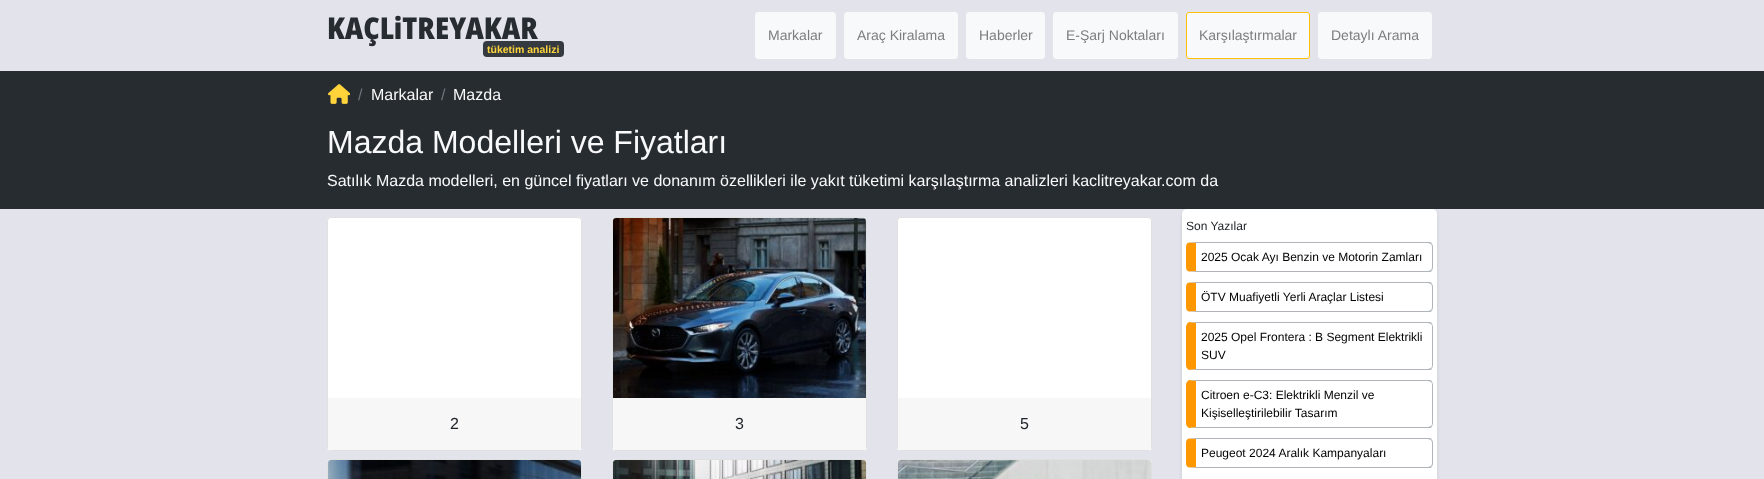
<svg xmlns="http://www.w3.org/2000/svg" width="1764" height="479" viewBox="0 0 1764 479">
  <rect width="100%" height="100%" fill="#e3e3eb"/>
  <rect x="755.5" y="12.5" width="80" height="46" rx="2.5" fill="#f8f9fa" stroke="#f8f9fa"/>
  <rect x="844.5" y="12.5" width="113" height="46" rx="2.5" fill="#f8f9fa" stroke="#f8f9fa"/>
  <rect x="966.5" y="12.5" width="78" height="46" rx="2.5" fill="#f8f9fa" stroke="#f8f9fa"/>
  <rect x="1053.5" y="12.5" width="124" height="46" rx="2.5" fill="#f8f9fa" stroke="#f8f9fa"/>
  <rect x="1186.5" y="12.5" width="123" height="46" rx="2.5" fill="#f8f9fa" stroke="#ffc107"/>
  <rect x="1318.5" y="12.5" width="113" height="46" rx="2.5" fill="#f8f9fa" stroke="#f8f9fa"/>
  <path d="M0 71h1764v138H0z" fill="#272c31"/>
  <image x="328" y="84" width="22" height="20" href="img/1.png"/>
  <rect x="327" y="217" width="255" height="234" rx="4" fill="#fff"/>
  <rect x="327.5" y="217.5" width="254" height="233" rx="3.5" fill="none" stroke="#0000001f"/>
  <path d="M328 398h253v52H328z" fill="#f7f7f7"/>
  <rect x="612" y="217" width="255" height="234" rx="4" fill="#fff"/>
  <rect x="612.5" y="217.5" width="254" height="233" rx="3.5" fill="none" stroke="#0000001f"/>
  <image x="613" y="218" width="253" height="180" href="img/2.png"/>
  <path d="M613 398h253v52H613z" fill="#f7f7f7"/>
  <rect x="897" y="217" width="255" height="234" rx="4" fill="#fff"/>
  <rect x="897.5" y="217.5" width="254" height="233" rx="3.5" fill="none" stroke="#0000001f"/>
  <path d="M898 398h253v52H898z" fill="#f7f7f7"/>
  <rect x="327" y="459" width="255" height="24" rx="4" fill="#fff"/>
  <rect x="327.5" y="459.5" width="254" height="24" rx="3.5" fill="none" stroke="#0000001f"/>
  <image x="328" y="460" width="253" height="19" href="img/3.png"/>
  <rect x="612" y="459" width="255" height="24" rx="4" fill="#fff"/>
  <rect x="612.5" y="459.5" width="254" height="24" rx="3.5" fill="none" stroke="#0000001f"/>
  <image x="613" y="460" width="253" height="19" href="img/4.png"/>
  <rect x="897" y="459" width="255" height="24" rx="4" fill="#fff"/>
  <rect x="897.5" y="459.5" width="254" height="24" rx="3.5" fill="none" stroke="#0000001f"/>
  <image x="898" y="460" width="253" height="19" href="img/5.png"/>
  <rect x="1184" y="213" width="251" height="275" rx="3" fill="#00000047" filter="blur(2.5px)"/>
  <rect x="1182" y="209" width="255" height="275" rx="5" fill="#fff"/>
  <path d="M1191 242H1189L1196 243H1428C1429 243 1430 244 1431 244L1432 243C1431 242 1430 242 1428 242Z" fill="#b1b5ba"/>
  <path d="M1433 267V247C1433 245.5 1432.5 244 1431.5 243.5L1431 244C1431.5 245 1432 246 1432 247V267C1432 268 1431.5 269 1431 270L1431.5 270.5C1432.5 270 1433 268.5 1433 267Z" fill="#b1b5ba"/>
  <path d="M1191 272H1428C1430 272 1431 272 1432 271L1431 270C1430 270 1429 271 1428 271H1196L1189 272Z" fill="#b1b5ba"/>
  <path d="M1196 243L1189 242.5C1187 243 1186 244.5 1186 247V267C1186 269.5 1187 271 1189 271.5L1196 271Z" fill="#ff9800"/>
  <path d="M1191 282H1189L1196 283H1428C1429 283 1430 284 1431 284L1432 283C1431 282 1430 282 1428 282Z" fill="#b1b5ba"/>
  <path d="M1433 307V287C1433 285.5 1432.5 284 1431.5 283.5L1431 284C1431.5 285 1432 286 1432 287V307C1432 308 1431.5 309 1431 310L1431.5 310.5C1432.5 310 1433 308.5 1433 307Z" fill="#b1b5ba"/>
  <path d="M1191 312H1428C1430 312 1431 312 1432 311L1431 310C1430 310 1429 311 1428 311H1196L1189 312Z" fill="#b1b5ba"/>
  <path d="M1196 283L1189 282.5C1187 283 1186 284.5 1186 287V307C1186 309.5 1187 311 1189 311.5L1196 311Z" fill="#ff9800"/>
  <path d="M1191 322H1189L1196 323H1428C1429 323 1430 324 1431 324L1432 323C1431 322 1430 322 1428 322Z" fill="#b1b5ba"/>
  <path d="M1433 365V327C1433 326 1432 324 1432 323L1431 324C1432 325 1432 326 1432 327V365C1432 366 1432 367 1431 368L1432 369C1432 368 1433 366 1433 365Z" fill="#b1b5ba"/>
  <path d="M1191 370H1428C1430 370 1431 370 1432 369L1431 368C1430 368 1429 369 1428 369H1196L1189 370Z" fill="#b1b5ba"/>
  <path d="M1196 323L1189 322C1187 323 1186 325 1186 327V365C1186 367 1187 369 1189 370L1196 369Z" fill="#ff9800"/>
  <path d="M1191 380H1189L1196 381H1428C1429 381 1430 382 1431 382L1432 381C1431 380 1430 380 1428 380Z" fill="#b1b5ba"/>
  <path d="M1433 423V385C1433 384 1432 382 1432 381L1431 382C1432 383 1432 384 1432 385V423C1432 424 1432 425 1431 426L1432 427C1432 426 1433 424 1433 423Z" fill="#b1b5ba"/>
  <path d="M1191 428H1428C1430 428 1431 428 1432 427L1431 426C1430 426 1429 427 1428 427H1196L1189 428Z" fill="#b1b5ba"/>
  <path d="M1196 381L1189 380C1187 381 1186 383 1186 385V423C1186 425 1187 427 1189 428L1196 427Z" fill="#ff9800"/>
  <path d="M1191 438H1189L1196 439H1428C1429 439 1430 440 1431 440L1432 439C1431 438 1430 438 1428 438Z" fill="#b1b5ba"/>
  <path d="M1433 463V443C1433 441.5 1432.5 440 1431.5 439.5L1431 440C1431.5 441 1432 442 1432 443V463C1432 464 1431.5 465 1431 466L1431.5 466.5C1432.5 466 1433 464.5 1433 463Z" fill="#b1b5ba"/>
  <path d="M1191 468H1428C1430 468 1431 468 1432 467L1431 466C1430 466 1429 467 1428 467H1196L1189 468Z" fill="#b1b5ba"/>
  <path d="M1196 439L1189 438.5C1187 439 1186 440.5 1186 443V463C1186 465.5 1187 467 1189 467.5L1196 467Z" fill="#ff9800"/>
  <text x="327" y="39" font-family="Noto Sans" font-size="30" font-weight="900" fill="#272c31">KAÇLiTREYAKAR</text>
  <rect x="483" y="41" width="81" height="16" rx="4" fill="#343a40"/>
  <text x="487" y="53" font-family="Liberation Sans" font-size="10.5" font-weight="bold" fill="#ffd43b">tüketim analizi</text>
  <g font-family="Liberation Sans" font-size="14" fill="#7c7d7d">
    <text x="768" y="40">Markalar</text>
    <text x="857" y="40">Araç Kiralama</text>
    <text x="979" y="40">Haberler</text>
    <text x="1066" y="40">E-Şarj Noktaları</text>
    <text x="1199" y="40">Karşılaştırmalar</text>
    <text x="1331" y="40">Detaylı Arama</text>
  </g>
  <text x="358" y="100" font-family="Liberation Sans" font-size="16" fill="#6c757d">/</text>
  <text x="371" y="100" font-family="Liberation Sans" font-size="16" fill="#f8f9fa">Markalar</text>
  <text x="441" y="100" font-family="Liberation Sans" font-size="16" fill="#6c757d">/</text>
  <text x="453" y="100" font-family="Liberation Sans" font-size="16" fill="#f8f9fa">Mazda</text>
  <text x="327" y="153" font-family="Liberation Sans" font-size="32" fill="#f8f9fa">Mazda Modelleri ve Fiyatları</text>
  <text x="327" y="186" font-family="Liberation Sans" font-size="16" fill="#f8f9fa">Satılık Mazda modelleri, en güncel fiyatları ve donanım özellikleri ile yakıt tüketimi karşılaştırma analizleri kaclitreyakar.com da</text>
  <g font-family="Liberation Sans" font-size="16" fill="#212529">
    <text x="450" y="429">2</text>
    <text x="735" y="429">3</text>
    <text x="1020" y="429">5</text>
  </g>
  <text x="1186" y="230" font-family="Liberation Sans" font-size="12" fill="#212529">Son Yazılar</text>
  <g font-family="Liberation Sans" font-size="12" fill="#000">
    <text x="1201" y="261">2025 Ocak Ayı Benzin ve Motorin Zamları</text>
    <text x="1201" y="301">ÖTV Muafiyetli Yerli Araçlar Listesi</text>
    <text x="1201" y="341">2025 Opel Frontera : B Segment Elektrikli</text>
    <text x="1201" y="359">SUV</text>
    <text x="1201" y="399">Citroen e-C3: Elektrikli Menzil ve</text>
    <text x="1201" y="417">Kişiselleştirilebilir Tasarım</text>
    <text x="1201" y="457">Peugeot 2024 Aralık Kampanyaları</text>
  </g>
</svg>
